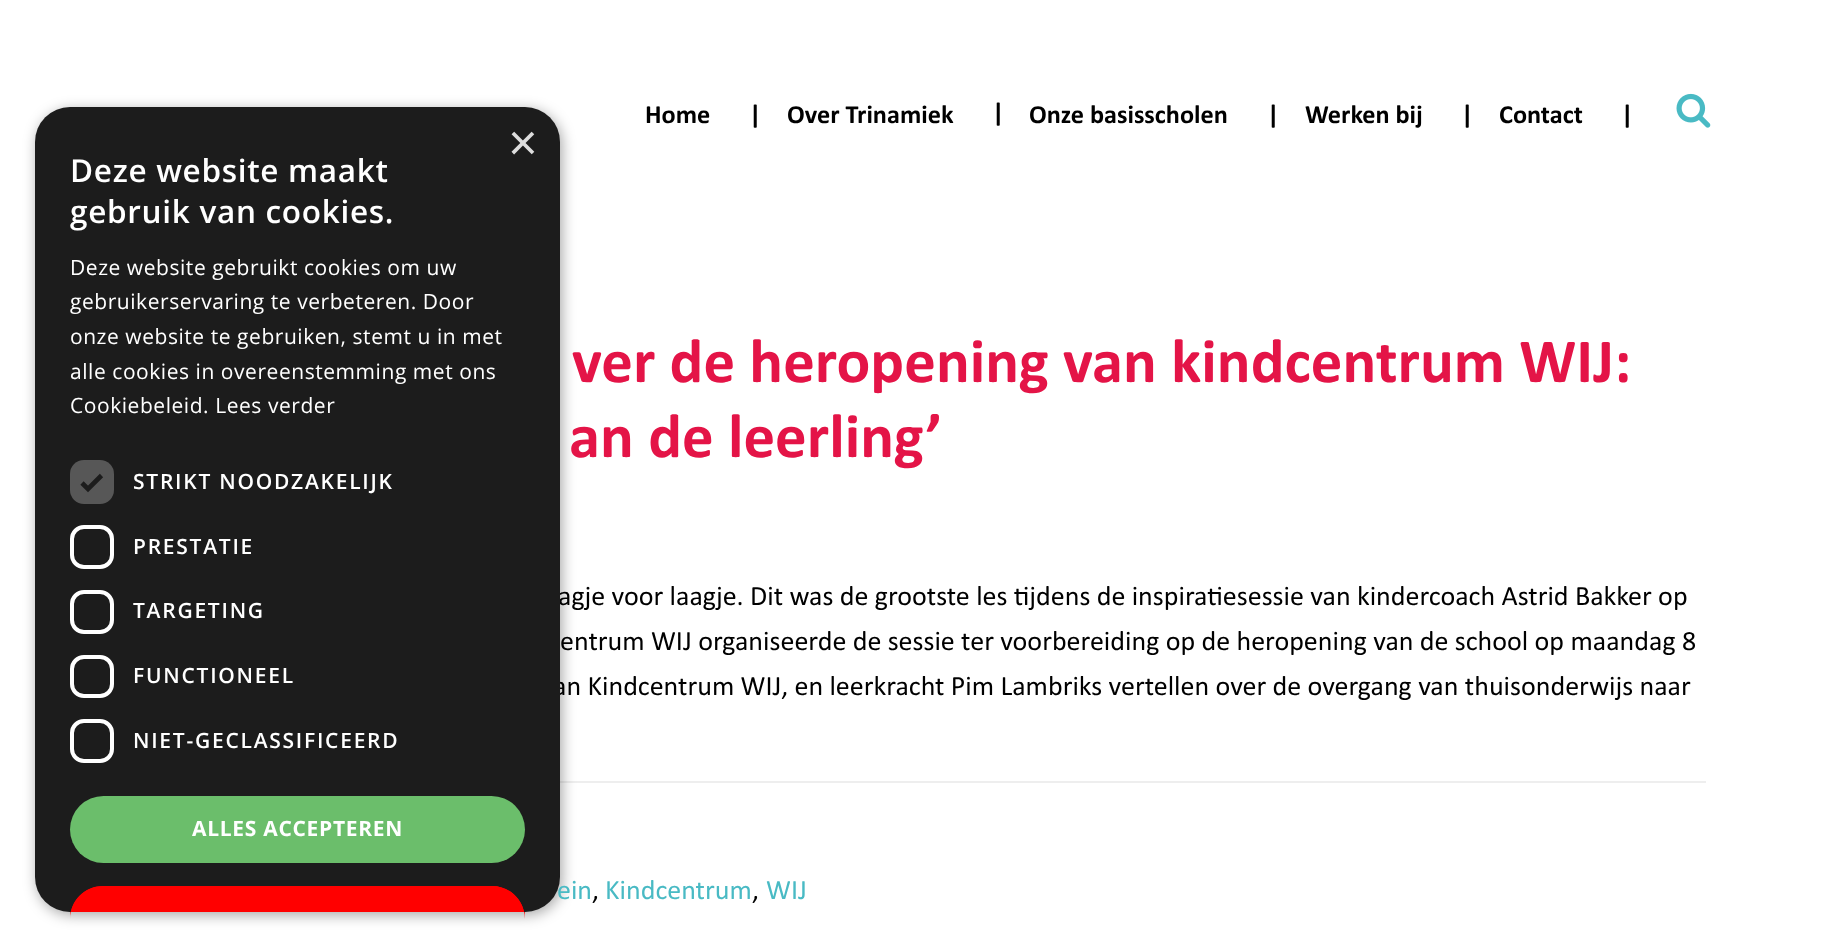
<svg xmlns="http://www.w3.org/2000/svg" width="1837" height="946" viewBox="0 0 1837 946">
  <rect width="100%" height="100%" fill="#fff"/>
  <path d="M560 781h1146v2H560z" fill="#eee"/>
  <rect x="37" y="110" width="525" height="805" rx="35" fill="#00000059" filter="blur(7px)"/>
  <image x="1676" y="93" width="35" height="35" href="img/1.png"/>
  <g font-family="Calibri" font-size="26.25" fill="#000">
    <text x="645" y="123">Home</text>
    <text x="749" y="123">|</text>
    <text x="787" y="123">Over Trinamiek</text>
    <text x="992" y="121">|</text>
    <text x="1029" y="123">Onze basisscholen</text>
    <text x="1267" y="123">|</text>
    <text x="1305" y="123">Werken bij</text>
    <text x="1461" y="123">|</text>
    <text x="1499" y="123">Contact</text>
    <text x="1621" y="123">|</text>
  </g>
  <g font-family="Calibri" font-size="63" fill="#e41447">
    <text x="572" y="382">ver de heropening van kindcentrum WIJ:</text>
    <text x="569" y="457">an de leerling’</text>
  </g>
  <g font-family="'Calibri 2'" font-size="28" fill="#000">
    <text x="558" y="605">agje voor laagje. Dit was de grootste les tijdens de inspiratiesessie van kindercoach Astrid Bakker op</text>
    <text x="560" y="650">entrum WIJ organiseerde de sessie ter voorbereiding op de heropening van de school op maandag 8</text>
    <text x="553" y="695">an Kindcentrum WIJ, en leerkracht Pim Lambriks vertellen over de overgang van thuisonderwijs naar</text>
  </g>
  <text x="557" y="899" font-family="'Calibri 2'" font-size="28" fill="#49bac4">ein</text>
  <rect x="35" y="107" width="525" height="805" rx="35" fill="#1c1c1c"/>
  <text x="508" y="160" font-family="Liberation Sans" font-size="51" fill="#ddd">×</text>
  <rect x="72" y="721" width="40" height="40" rx="12" fill="none" stroke="#fff" stroke-width="4"/>
  <rect x="72" y="657" width="40" height="39" rx="12" fill="none" stroke="#fff" stroke-width="4"/>
  <rect x="72" y="592" width="40" height="40" rx="12" fill="none" stroke="#fff" stroke-width="4"/>
  <rect x="72" y="527" width="40" height="40" rx="12" fill="none" stroke="#fff" stroke-width="4"/>
  <rect x="70" y="460" width="44" height="44" rx="14" fill="#575757"/>
  <path d="M82 483L88 489L101.5 475.5" fill="none" stroke="#1c1c1c" stroke-width="4.6"/>
  <path d="M103 886H492C510 886 525 901 525 919V912H70V919C70 901 85 886 103 886Z" fill="#f00"/>
  <path d="M103 886C87 886 74 897 71 912H73C76 898 88 888 103 888H492C507 888 519 898 522 912H524C521 897 508 886 492 886Z" fill="#f00"/>
  <rect x="70" y="796" width="455" height="67" rx="33.5" fill="#6bbe6b"/>
  <text x="192" y="836" font-family="Open Sans" font-size="21" font-weight="bold" letter-spacing="0.7" fill="#fff">ALLES ACCEPTEREN</text>
  <g font-family="Open Sans" font-size="21" font-weight="600" letter-spacing="1.75" fill="#fff">
    <text x="133" y="748">NIET-GECLASSIFICEERD</text>
    <text x="133" y="683">FUNCTIONEEL</text>
    <text x="133" y="618">TARGETING</text>
    <text x="133" y="554">PRESTATIE</text>
    <text x="133" y="489">STRIKT NOODZAKELIJK</text>
  </g>
  <g font-family="Open Sans" font-size="21" letter-spacing="0.55" fill="#fff">
    <text x="70" y="413">Cookiebeleid. Lees verder</text>
    <text x="70" y="379">alle cookies in overeenstemming met ons</text>
    <text x="70" y="344">onze website te gebruiken, stemt u in met</text>
    <text x="70" y="309">gebruikerservaring te verbeteren. Door</text>
    <text x="70" y="275">Deze website gebruikt cookies om uw</text>
  </g>
  <g font-family="Open Sans" font-size="31.5" font-weight="600" letter-spacing="0.7" fill="#fff">
    <text x="70" y="223">gebruik van cookies.</text>
    <text x="70" y="182">Deze website maakt</text>
  </g>
  <text x="592" y="899" font-family="'Calibri 2'" font-size="28" fill="#000">,</text>
  <text x="605" y="899" font-family="'Calibri 2'" font-size="28" fill="#49bac4">Kindcentrum</text>
  <text x="752" y="899" font-family="'Calibri 2'" font-size="28" fill="#000">,</text>
  <text x="766" y="899" font-family="'Calibri 2'" font-size="28" fill="#49bac4">WIJ</text>
</svg>
